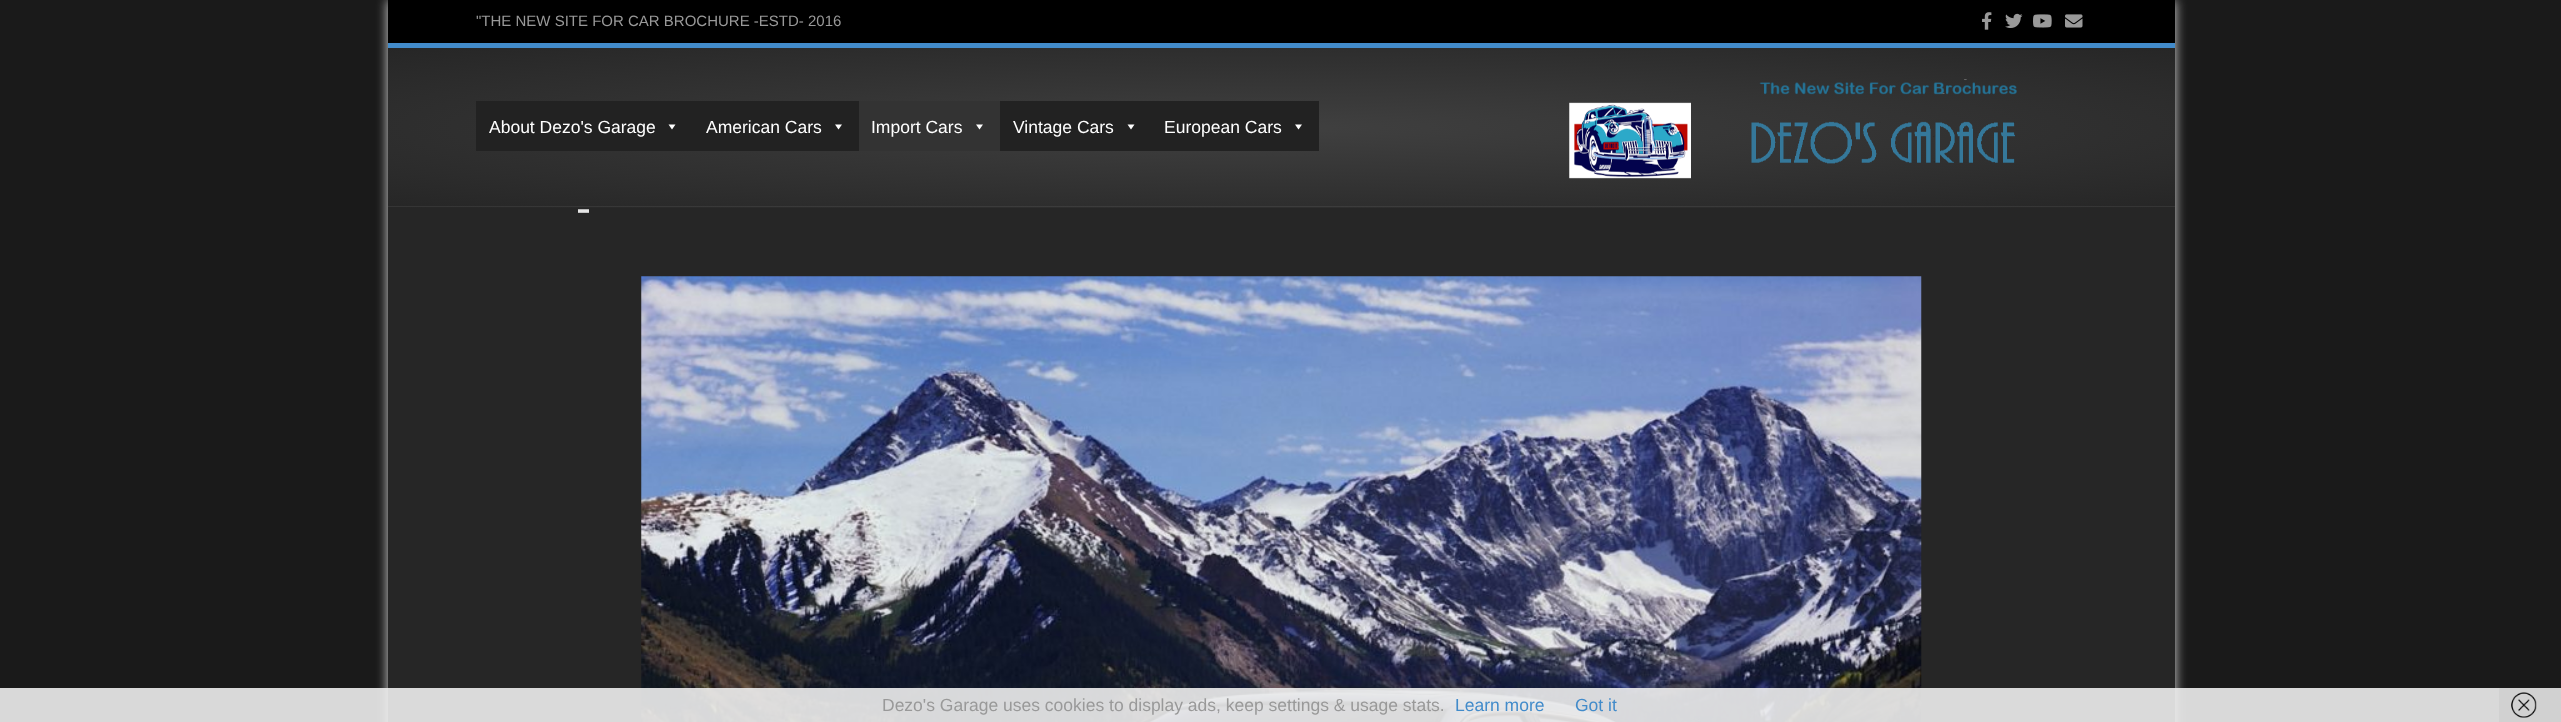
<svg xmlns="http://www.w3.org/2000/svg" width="2561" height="722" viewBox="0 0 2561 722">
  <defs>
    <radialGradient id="g1" gradientUnits="userSpaceOnUse" cx="0" cy="0" r="1" gradientTransform="matrix(1264 0 0 113 1281 128)"><stop offset="0" stop-color="#404040"/><stop offset="1" stop-color="#262626"/></radialGradient>
  </defs>
  <rect width="100%" height="100%" fill="#1a1a1a"/>
  <path d="M388 0h1787v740H388z" fill="#d9d9d9" filter="blur(6px)"/>
  <path d="M388 0h1787v43H388z" fill="#000"/>
  <path d="M388 43h1787v5H388z" fill="#428bca"/>
  <image x="1982" y="12" width="10" height="18" href="img/1.png"/>
  <image x="2005" y="13" width="18" height="15" href="img/2.png"/>
  <image x="2033" y="14" width="19" height="14" href="img/3.png"/>
  <image x="2065" y="14" width="18" height="14" href="img/4.png"/>
  <path d="M388 48h1787v160H388z" fill="url(#g1)"/>
  <path d="M388 206h1787v1H388z" fill="#99999921"/>
  <path d="M476 101h843v50H476z" fill="#222"/>
  <path d="M675.5 124.5L672 129.5L668.5 124.5Z" fill="#fff"/>
  <path d="M842 124.5L838.5 129.5L835 124.5Z" fill="#fff"/>
  <path d="M859 101h141v50H859z" fill="#333"/>
  <path d="M983 124.5L979.5 129.5L976 124.5Z" fill="#fff"/>
  <path d="M1134.5 124.5L1131 129.5L1127.5 124.5Z" fill="#fff"/>
  <path d="M1302 124.5L1298.5 129.5L1295 124.5Z" fill="#fff"/>
  <image x="1569" y="79" width="448" height="100" href="img/5.png"/>
  <path d="M388 208h1787v514H388z" fill="#262626"/>
  <image x="641" y="276" width="1281" height="446" href="img/6.png"/>
  <path d="M0 688h2499v34H0z" fill="#eeeeeee6"/>
  <path d="M2499 688h62v34H2499z" fill="#d1d1d1"/>
  <image x="2511" y="692" width="26" height="26" href="img/7.png"/>
  <text x="476" y="26" font-family="Liberation Sans" font-size="15" fill="#999">"THE NEW SITE FOR CAR BROCHURE -ESTD- 2016</text>
  <g font-family="Liberation Sans" font-size="17.5" fill="#fff">
    <text x="489" y="133">About Dezo's Garage</text>
    <text x="706" y="133">American Cars</text>
    <text x="871" y="133">Import Cars</text>
    <text x="1013" y="133">Vintage Cars</text>
    <text x="1164" y="133">European Cars</text>
  </g>
  <text x="576" y="223" font-family="Liberation Sans" font-size="45" fill="#e6e6e6">-</text>
  <text x="882" y="711" font-family="Liberation Sans" font-size="17.5" fill="#999">Dezo's Garage uses cookies to display ads, keep settings &amp; usage stats.</text>
  <g font-family="Liberation Sans" font-size="17.5" fill="#428bca">
    <text x="1455" y="711">Learn more</text>
    <text x="1575" y="711">Got it</text>
  </g>
</svg>
